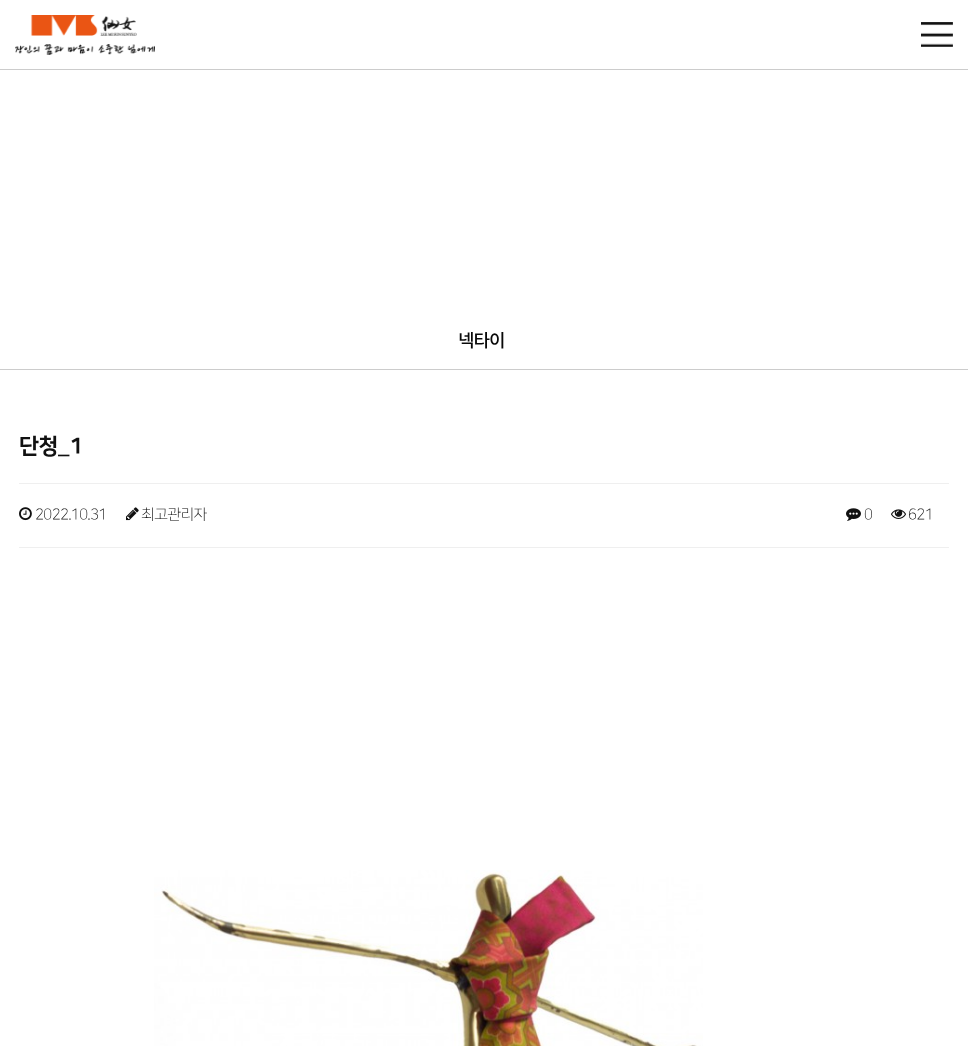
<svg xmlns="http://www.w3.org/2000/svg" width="968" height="1046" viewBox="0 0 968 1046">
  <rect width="100%" height="100%" fill="#fff"/>
  <path d="M0 69h968v1H0z" fill="#ccc"/>
  <image x="15" y="15" width="140" height="40" href="img/1.png"/>
  <image x="921" y="22" width="32" height="25" href="img/2.png"/>
  <path d="M0 369h968v1H0z" fill="#ccc"/>
  <path d="M19 483h930v1H19z" fill="#efefef"/>
  <path d="M19 547h930v1H19z" fill="#efefef"/>
  <image x="19" y="507" width="13" height="14" href="img/3.png"/>
  <image x="126" y="507" width="13" height="14" href="img/4.png"/>
  <image x="846" y="508" width="15" height="13" href="img/5.png"/>
  <image x="891" y="509" width="15" height="10" href="img/6.png"/>
  <image x="154" y="870" width="549" height="176" href="img/7.png"/>
  <text x="458" y="347" font-family="Noto Sans KR" font-size="18" font-weight="500" letter-spacing="-1" fill="#090909">넥타이</text>
  <text x="19" y="453" font-family="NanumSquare" font-size="22" font-weight="800" letter-spacing="-0.5" fill="#111">단청_1</text>
  <text x="35" y="519" font-family="NanumSquare" font-size="15" font-weight="300" letter-spacing="-0.5" fill="#111">2022.10.31</text>
  <text x="141" y="519" font-family="NanumSquare" font-size="15" font-weight="300" letter-spacing="-0.5" fill="#000">최고관리자</text>
  <g font-family="NanumSquare" font-size="15" font-weight="300" letter-spacing="-0.5" fill="#111">
    <text x="864" y="519">0</text>
    <text x="908" y="519">621</text>
  </g>
</svg>
